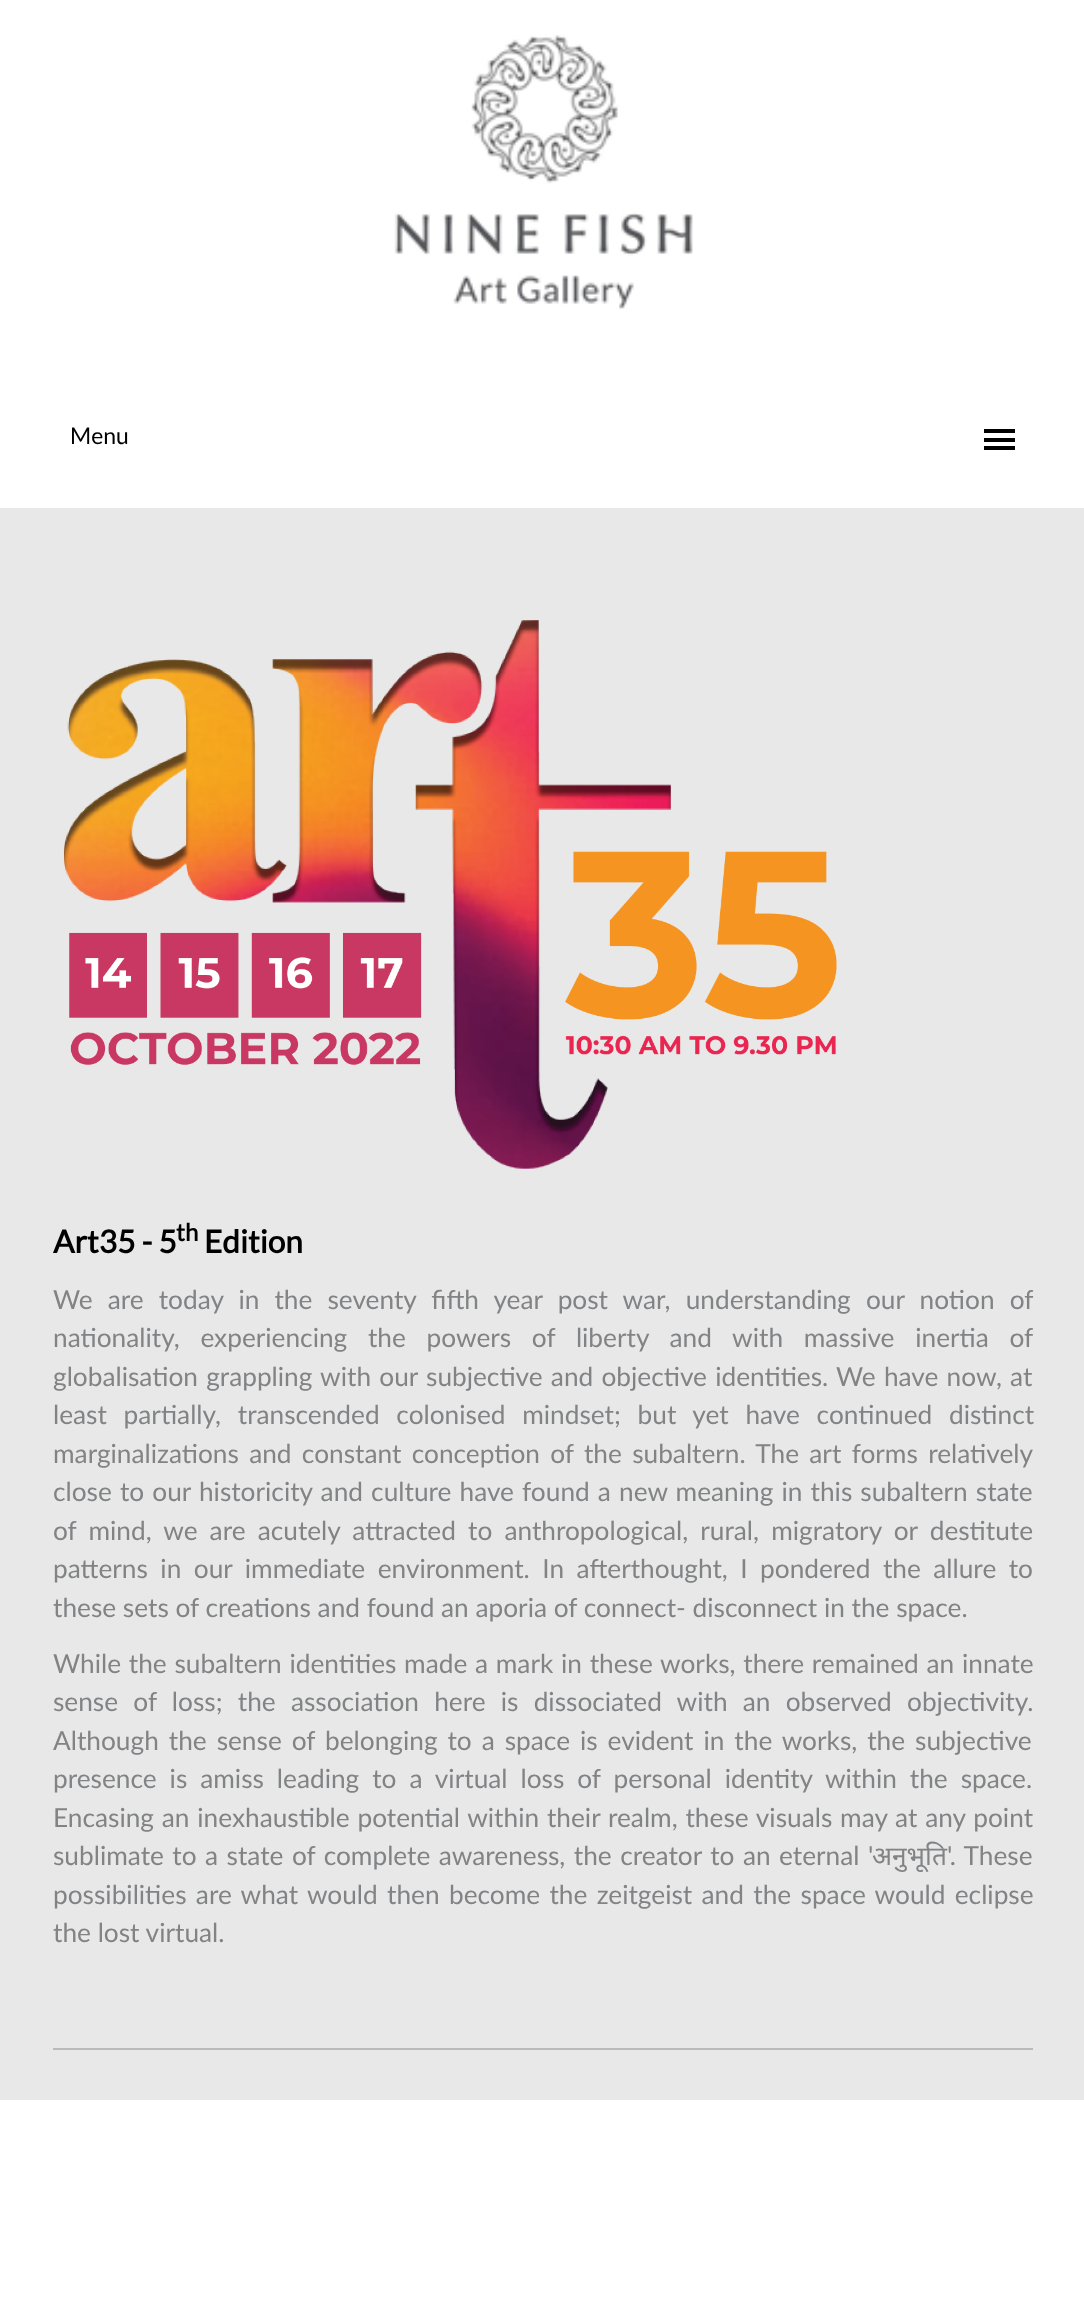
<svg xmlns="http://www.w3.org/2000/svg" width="1084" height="2313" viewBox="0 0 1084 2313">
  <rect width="100%" height="100%" fill="#fff"/>
  <image x="394" y="35" width="299" height="275" href="img/1.png"/>
  <path d="M984 429h31v4H984z" fill="#000"/>
  <path d="M984 438h31v4H984z" fill="#000"/>
  <path d="M984 446h31v4H984z" fill="#000"/>
  <path d="M0 508h1084v1592H0z" fill="#e8e8e8"/>
  <image x="63" y="620" width="774" height="549" href="img/2.png"/>
  <path d="M53 2048h980v2H53z" fill="#bababa"/>
  <text x="70" y="444" font-family="Lato" font-size="23" fill="#000">Menu</text>
  <text x="53" y="1253" font-family="Lato" font-size="31.5" font-weight="bold" fill="#000">Art35 - 5</text>
  <text x="176" y="1241" font-family="Lato" font-size="24" font-weight="bold" fill="#000">th</text>
  <text x="204" y="1253" font-family="Lato" font-size="31.5" font-weight="bold" fill="#000">Edition</text>
  <g font-family="'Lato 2'" font-size="26.25" fill="#828385">
    <text x="53" y="1309" word-spacing="8.4">We are today in the seventy fifth year post war, understanding our notion of</text>
    <text x="53" y="1347" word-spacing="14">nationality, experiencing the powers of liberty and with massive inertia of</text>
    <text x="53" y="1386" word-spacing="1.5">globalisation grappling with our subjective and objective identities. We have now, at</text>
    <text x="53" y="1424" word-spacing="10">least partially, transcended colonised mindset; but yet have continued distinct</text>
    <text x="53" y="1463" word-spacing="3.6">marginalizations and constant conception of the subaltern. The art forms relatively</text>
    <text x="53" y="1501" word-spacing="1.4">close to our historicity and culture have found a new meaning in this subaltern state</text>
    <text x="53" y="1540" word-spacing="5.4">of mind, we are acutely attracted to anthropological, rural, migratory or destitute</text>
    <text x="53" y="1578" word-spacing="5.75">patterns in our immediate environment. In afterthought, I pondered the allure to</text>
    <text x="53" y="1617">these sets of creations and found an aporia of connect- disconnect in the space.</text>
    <text x="53" y="1673" word-spacing="1">While the subaltern identities made a mark in these works, there remained an innate</text>
    <text x="53" y="1711" word-spacing="8.5">sense of loss; the association here is dissociated with an observed objectivity.</text>
    <text x="53" y="1750" word-spacing="3.25">Although the sense of belonging to a space is evident in the works, the subjective</text>
    <text x="53" y="1788" word-spacing="6.25">presence is amiss leading to a virtual loss of personal identity within the space.</text>
    <text x="53" y="1827" word-spacing="1.1">Encasing an inexhaustible potential within their realm, these visuals may at any point</text>
    <text x="53" y="1865" word-spacing="1.75">sublimate to a state of complete awareness, the creator to an eternal '</text>
  </g>
  <text x="872" y="1865" font-family="Noto Sans" font-size="26.25" fill="#828385">अनुभूति</text>
  <g font-family="'Lato 2'" font-size="26.25" fill="#828385">
    <text x="947" y="1865" word-spacing="1.75">'. These</text>
    <text x="53" y="1904" word-spacing="2.6">possibilities are what would then become the zeitgeist and the space would eclipse</text>
    <text x="53" y="1942">the lost virtual.</text>
  </g>
</svg>
